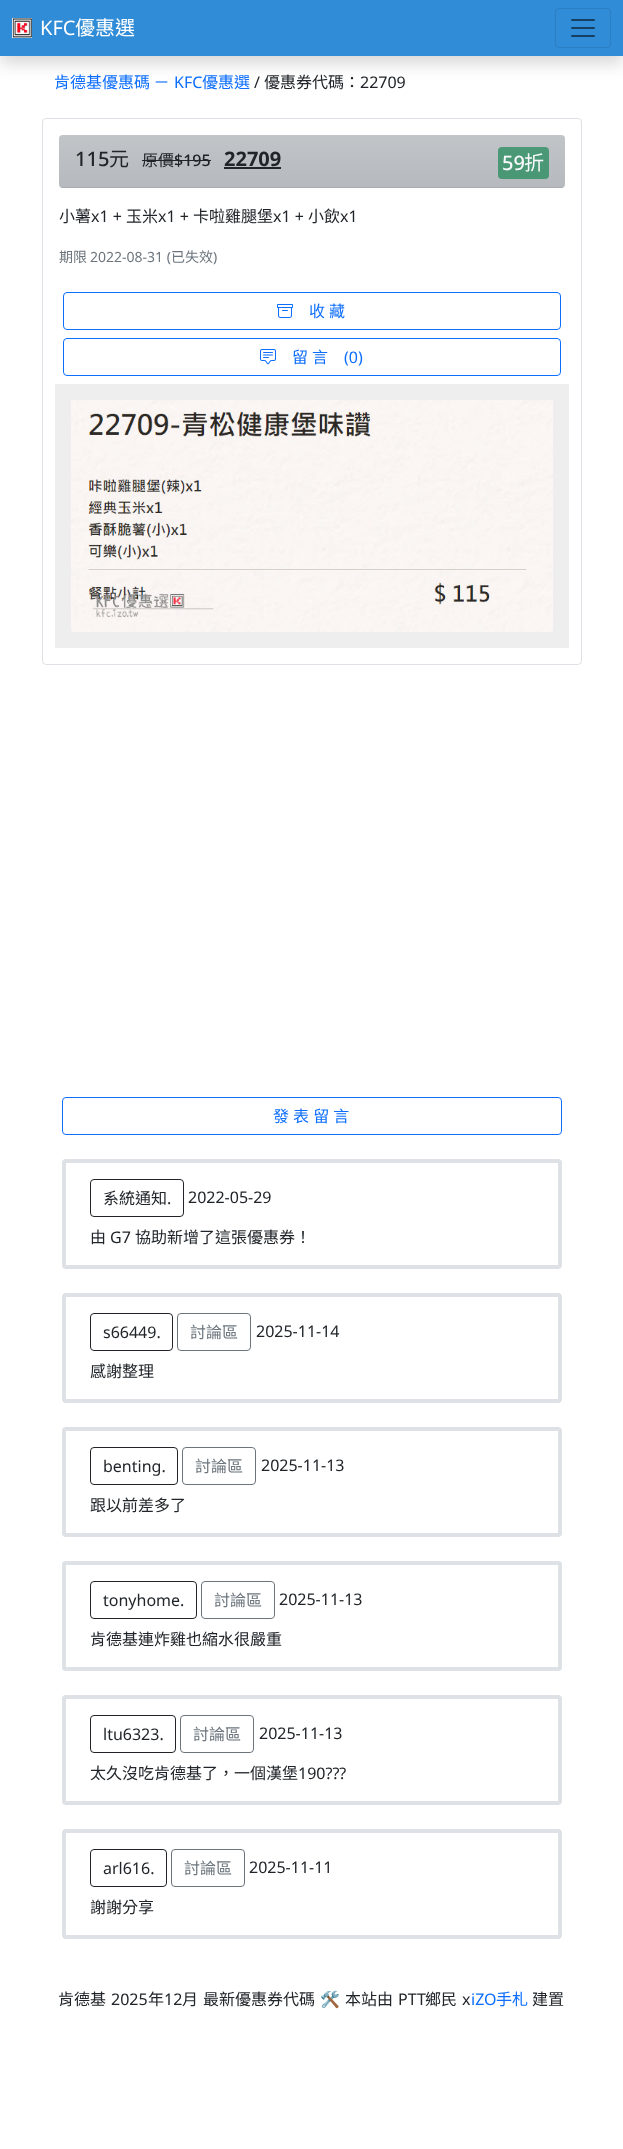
<svg xmlns="http://www.w3.org/2000/svg" width="623" height="2149" viewBox="0 0 623 2149">
  <defs>
    <linearGradient id="g1" gradientUnits="userSpaceOnUse" x1="312" y1="135" x2="312" y2="187"><stop offset="0" stop-color="#fff" stop-opacity="0.15"/><stop offset="1" stop-color="#fff" stop-opacity="0"/></linearGradient>
    <clipPath id="clip1"><rect x="59" y="135" width="506" height="53" rx="4"/></clipPath>
    <linearGradient id="g2" gradientUnits="userSpaceOnUse" x1="312" y1="187" x2="312" y2="239"><stop offset="0" stop-color="#fff" stop-opacity="0.15"/><stop offset="1" stop-color="#fff" stop-opacity="0"/></linearGradient>
  </defs>
  <rect width="100%" height="100%" fill="#fff"/>
  <path d="M0 8h623v56H0z" fill="#00000026" filter="blur(8px)"/>
  <path d="M0 0h623v56H0z" fill="#318cd7"/>
  <image x="12" y="18" width="20" height="20" href="img/1.png"/>
  <rect x="555.5" y="8.5" width="55" height="39" rx="3.5" fill="none" stroke="#2c7ec2"/>
  <image x="571" y="19" width="24" height="18" href="img/2.png"/>
  <rect x="42.5" y="118.5" width="539" height="546" rx="3.5" fill="none" stroke="#dee2e6"/>
  <rect x="59" y="135" width="506" height="53" rx="4" fill="#b6babe"/>
  <path d="M63 135H561C563 135 565 137 565 139V187H59V139C59 137 61 135 63 135Z" fill="url(#g1)"/>
  <g clip-path="url(#clip1)">
    <path d="M59 187h506v1H59z" fill="url(#g2)"/>
  </g>
  <path d="M61 187h502v1H61z" fill="#0000001f"/>
  <path d="M142 160h69v1H142z" fill="#212529"/>
  <path d="M224 167h57v2H224z" fill="#212529"/>
  <rect x="498" y="147" width="51" height="32" rx="4" fill="#198754b3"/>
  <rect x="63.5" y="292.5" width="497" height="37" rx="3.5" fill="none" stroke="#0d6efd"/>
  <image x="277" y="304" width="16" height="14" href="img/3.png"/>
  <rect x="63.5" y="338.5" width="497" height="37" rx="3.5" fill="none" stroke="#0d6efd"/>
  <image x="260" y="349" width="16" height="16" href="img/4.png"/>
  <path d="M55 384h514v264H55z" fill="#eee"/>
  <image x="71" y="400" width="482" height="232" href="img/5.png"/>
  <rect x="62.5" y="1097.5" width="499" height="37" rx="3.5" fill="none" stroke="#0d6efd"/>
  <rect x="64" y="1161" width="496" height="106" rx="2" fill="none" stroke="#dee2e6" stroke-width="4"/>
  <rect x="90.5" y="1179.5" width="93" height="37" rx="3.5" fill="none" stroke="#212529"/>
  <rect x="64" y="1295" width="496" height="106" rx="2" fill="none" stroke="#dee2e6" stroke-width="4"/>
  <rect x="90.5" y="1313.5" width="82" height="37" rx="3.5" fill="none" stroke="#212529"/>
  <rect x="177.5" y="1313.5" width="73" height="37" rx="3.5" fill="none" stroke="#6c757d"/>
  <rect x="64" y="1429" width="496" height="106" rx="2" fill="none" stroke="#dee2e6" stroke-width="4"/>
  <rect x="90.5" y="1447.5" width="87" height="37" rx="3.5" fill="none" stroke="#212529"/>
  <rect x="182.5" y="1447.5" width="73" height="37" rx="3.5" fill="none" stroke="#6c757d"/>
  <rect x="64" y="1563" width="496" height="106" rx="2" fill="none" stroke="#dee2e6" stroke-width="4"/>
  <rect x="90.5" y="1581.5" width="106" height="37" rx="3.5" fill="none" stroke="#212529"/>
  <rect x="201.5" y="1581.5" width="73" height="37" rx="3.5" fill="none" stroke="#6c757d"/>
  <rect x="64" y="1697" width="496" height="106" rx="2" fill="none" stroke="#dee2e6" stroke-width="4"/>
  <rect x="90.5" y="1715.5" width="85" height="37" rx="3.5" fill="none" stroke="#212529"/>
  <rect x="180.5" y="1715.5" width="73" height="37" rx="3.5" fill="none" stroke="#6c757d"/>
  <rect x="64" y="1831" width="496" height="106" rx="2" fill="none" stroke="#dee2e6" stroke-width="4"/>
  <rect x="90.5" y="1849.5" width="76" height="37" rx="3.5" fill="none" stroke="#212529"/>
  <rect x="171.5" y="1849.5" width="73" height="37" rx="3.5" fill="none" stroke="#6c757d"/>
  <text x="40" y="35" font-family="Noto Sans" font-size="20" fill="#fff">KFC</text>
  <text x="75" y="35" font-family="Noto Sans CJK TC" font-size="20" fill="#fff">優惠選</text>
  <text x="54" y="88" font-family="Noto Sans CJK TC" font-size="16" fill="#0d6efd">肯德基優惠碼 －</text>
  <text x="174" y="88" font-family="Noto Sans" font-size="16" fill="#0d6efd">KFC</text>
  <text x="202" y="88" font-family="Noto Sans CJK TC" font-size="16" fill="#0d6efd">優惠選</text>
  <text x="254" y="88" font-family="Noto Sans" font-size="16" fill="#212529">/</text>
  <text x="264" y="88" font-family="Noto Sans CJK TC" font-size="16" fill="#212529">優惠券代碼：</text>
  <text x="360" y="88" font-family="Noto Sans" font-size="16" fill="#212529">22709</text>
  <text x="75" y="166" font-family="Noto Sans" font-size="20" font-weight="500" fill="#212529">115</text>
  <text x="109" y="166" font-family="Noto Sans CJK TC" font-size="20" fill="#212529">元</text>
  <text x="142" y="166" font-family="Noto Sans CJK TC" font-size="16" fill="#212529">原價</text>
  <text x="174" y="166" font-family="Noto Sans" font-size="16" font-weight="500" fill="#212529">$195</text>
  <text x="224" y="166" font-family="Noto Sans" font-size="20" font-weight="bold" fill="#212529">22709</text>
  <text x="502" y="170" font-family="Noto Sans" font-size="20" font-weight="500" fill="#f8f9fa">59</text>
  <text x="524" y="170" font-family="Noto Sans CJK TC" font-size="20" fill="#f8f9fa">折</text>
  <text x="59" y="222" font-family="Noto Sans CJK TC" font-size="16" fill="#212529">小薯</text>
  <text x="91" y="222" font-family="Noto Sans" font-size="16" fill="#212529">x1 +</text>
  <text x="126" y="222" font-family="Noto Sans CJK TC" font-size="16" fill="#212529">玉米</text>
  <text x="158" y="222" font-family="Noto Sans" font-size="16" fill="#212529">x1 +</text>
  <text x="193" y="222" font-family="Noto Sans CJK TC" font-size="16" fill="#212529">卡啦雞腿堡</text>
  <text x="273" y="222" font-family="Noto Sans" font-size="16" fill="#212529">x1 +</text>
  <text x="308" y="222" font-family="Noto Sans CJK TC" font-size="16" fill="#212529">小飲</text>
  <text x="340" y="222" font-family="Noto Sans" font-size="16" fill="#212529">x1</text>
  <text x="59" y="262" font-family="Noto Sans CJK TC" font-size="14" fill="#6c757d">期限</text>
  <text x="90" y="262" font-family="Noto Sans" font-size="14" fill="#6c757d">2022-08-31 (</text>
  <text x="171" y="262" font-family="Noto Sans CJK TC" font-size="14" fill="#6c757d">已失效</text>
  <text x="213" y="262" font-family="Noto Sans" font-size="14" fill="#6c757d">)</text>
  <g font-family="Noto Sans CJK TC" font-size="16" fill="#0d6efd">
    <text x="309" y="317" word-spacing="0.5">收 藏</text>
    <text x="292" y="363" word-spacing="0.5">留 言</text>
  </g>
  <text x="344" y="363" font-family="Noto Sans" font-size="16" fill="#0d6efd">(0)</text>
  <text x="273" y="1122" word-spacing="0.5" font-family="Noto Sans CJK TC" font-size="16" fill="#0d6efd">發 表 留 言</text>
  <text x="103" y="1204" font-family="Noto Sans CJK TC" font-size="16" fill="#212529">系統通知</text>
  <g font-family="Noto Sans" font-size="16" fill="#212529">
    <text x="167" y="1204">.</text>
    <text x="188" y="1203">2022-05-29</text>
  </g>
  <text x="90" y="1243" font-family="Noto Sans CJK TC" font-size="16" fill="#212529">由</text>
  <text x="110" y="1243" font-family="Noto Sans" font-size="16" fill="#212529">G7</text>
  <text x="135" y="1243" font-family="Noto Sans CJK TC" font-size="16" fill="#212529">協助新增了這張優惠券！</text>
  <text x="103" y="1338" font-family="Noto Sans" font-size="16" fill="#212529">s66449.</text>
  <text x="190" y="1338" font-family="Noto Sans CJK TC" font-size="16" fill="#6c757d">討論區</text>
  <text x="256" y="1337" font-family="Noto Sans" font-size="16" fill="#212529">2025-11-14</text>
  <text x="90" y="1377" font-family="Noto Sans CJK TC" font-size="16" fill="#212529">感謝整理</text>
  <text x="103" y="1472" font-family="Noto Sans" font-size="16" fill="#212529">benting.</text>
  <text x="195" y="1472" font-family="Noto Sans CJK TC" font-size="16" fill="#6c757d">討論區</text>
  <text x="261" y="1471" font-family="Noto Sans" font-size="16" fill="#212529">2025-11-13</text>
  <text x="90" y="1511" font-family="Noto Sans CJK TC" font-size="16" fill="#212529">跟以前差多了</text>
  <text x="103" y="1606" font-family="Noto Sans" font-size="16" fill="#212529">tonyhome.</text>
  <text x="214" y="1606" font-family="Noto Sans CJK TC" font-size="16" fill="#6c757d">討論區</text>
  <text x="279" y="1605" font-family="Noto Sans" font-size="16" fill="#212529">2025-11-13</text>
  <text x="90" y="1645" font-family="Noto Sans CJK TC" font-size="16" fill="#212529">肯德基連炸雞也縮水很嚴重</text>
  <text x="103" y="1740" font-family="Noto Sans" font-size="16" fill="#212529">ltu6323.</text>
  <text x="193" y="1740" font-family="Noto Sans CJK TC" font-size="16" fill="#6c757d">討論區</text>
  <text x="259" y="1739" font-family="Noto Sans" font-size="16" fill="#212529">2025-11-13</text>
  <text x="90" y="1779" font-family="Noto Sans CJK TC" font-size="16" fill="#212529">太久沒吃肯德基了，一個漢堡</text>
  <g font-family="Noto Sans" font-size="16" fill="#212529">
    <text x="298" y="1779">190???</text>
    <text x="103" y="1874">arl616.</text>
  </g>
  <text x="184" y="1874" font-family="Noto Sans CJK TC" font-size="16" fill="#6c757d">討論區</text>
  <text x="249" y="1873" font-family="Noto Sans" font-size="16" fill="#212529">2025-11-11</text>
  <g font-family="Noto Sans CJK TC" font-size="16" fill="#212529">
    <text x="90" y="1913">謝謝分享</text>
    <text x="58" y="2005">肯德基</text>
  </g>
  <text x="111" y="2005" font-family="Noto Sans" font-size="16" fill="#212529">2025</text>
  <text x="148" y="2005" font-family="Noto Sans CJK TC" font-size="16" fill="#212529">年</text>
  <text x="164" y="2005" font-family="Noto Sans" font-size="16" fill="#212529">12</text>
  <g font-family="Noto Sans CJK TC" font-size="16" fill="#212529">
    <text x="182" y="2005">月</text>
    <text x="203" y="2005">最新優惠券代碼</text>
  </g>
  <text x="320" y="2005" font-family="Noto Color Emoji" font-size="16" fill="#212529">🛠</text>
  <text x="345" y="2005" font-family="Noto Sans CJK TC" font-size="16" fill="#212529">本站由</text>
  <text x="398" y="2005" font-family="Noto Sans" font-size="16" fill="#212529">PTT</text>
  <text x="425" y="2005" font-family="Noto Sans CJK TC" font-size="16" fill="#212529">鄉民</text>
  <text x="462" y="2005" font-family="Noto Sans" font-size="16" fill="#212529">x</text>
  <text x="471" y="2005" font-family="Noto Sans" font-size="16" fill="#0d6efd">iZO</text>
  <text x="496" y="2005" font-family="Noto Sans CJK TC" font-size="16" fill="#0d6efd">手札</text>
  <text x="532" y="2005" font-family="Noto Sans CJK TC" font-size="16" fill="#212529">建置</text>
</svg>
